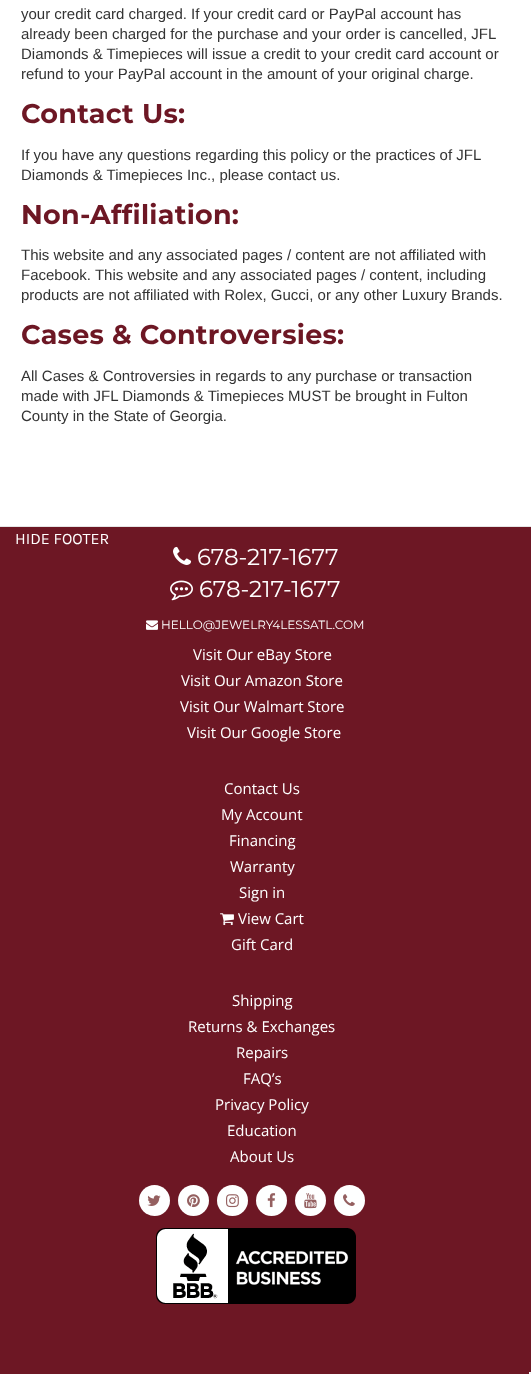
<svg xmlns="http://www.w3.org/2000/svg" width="531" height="1374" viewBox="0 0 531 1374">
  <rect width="100%" height="100%" fill="#fff"/>
  <path d="M0 527h531v847H0z" fill="#6d1724"/>
  <path d="M0 526h531v1H0z" fill="#e5e5e5"/>
  <image x="173" y="546" width="19" height="19" href="img/1.png"/>
  <image x="170" y="580" width="23" height="21" href="img/2.png"/>
  <image x="146" y="620" width="12" height="10" href="img/3.png"/>
  <image x="220" y="913" width="14" height="13" href="img/4.png"/>
  <circle cx="154.5" cy="1200.5" r="15.5" fill="#feffff"/>
  <image x="147" y="1195" width="14" height="11" href="img/5.png"/>
  <circle cx="193.5" cy="1200.5" r="15.5" fill="#feffff"/>
  <image x="187" y="1194" width="13" height="14" href="img/6.png"/>
  <circle cx="232.5" cy="1200.5" r="15.5" fill="#feffff"/>
  <image x="226" y="1194" width="13" height="14" href="img/7.png"/>
  <circle cx="271.5" cy="1200.5" r="15.5" fill="#feffff"/>
  <image x="267" y="1193" width="9" height="15" href="img/8.png"/>
  <circle cx="310.5" cy="1200.5" r="15.5" fill="#feffff"/>
  <image x="304" y="1193" width="13" height="16" href="img/9.png"/>
  <circle cx="349.5" cy="1200.5" r="15.5" fill="#feffff"/>
  <image x="343" y="1194" width="12" height="12" href="img/10.png"/>
  <image x="156" y="1228" width="200" height="76" href="img/11.png"/>
  <path d="M529 1372h2v2H529z" fill="#f5f5f5"/>
  <g font-family="Liberation Sans" font-size="15" fill="#333">
    <text x="21" y="19">your credit card charged. If your credit card or PayPal account has</text>
    <text x="21" y="39">already been charged for the purchase and your order is cancelled, JFL</text>
    <text x="21" y="59">Diamonds &amp; Timepieces will issue a credit to your credit card account or</text>
    <text x="21" y="79">refund to your PayPal account in the amount of your original charge.</text>
  </g>
  <text x="21" y="123" font-family="Montserrat" font-size="27" font-weight="bold" letter-spacing="0.25" fill="#6d1724">Contact Us:</text>
  <g font-family="Liberation Sans" font-size="15" fill="#333">
    <text x="21" y="160">If you have any questions regarding this policy or the practices of JFL</text>
    <text x="21" y="180">Diamonds &amp; Timepieces Inc., please contact us.</text>
  </g>
  <text x="21" y="224" font-family="Montserrat" font-size="27" font-weight="bold" letter-spacing="0.25" fill="#6d1724">Non-Affiliation:</text>
  <g font-family="Liberation Sans" font-size="15" fill="#333">
    <text x="21" y="260">This website and any associated pages / content are not affiliated with</text>
    <text x="21" y="280">Facebook. This website and any associated pages / content, including</text>
    <text x="21" y="300">products are not affiliated with Rolex, Gucci, or any other Luxury Brands.</text>
  </g>
  <text x="21" y="344" font-family="Montserrat" font-size="27" font-weight="bold" letter-spacing="0.25" fill="#6d1724">Cases &amp; Controversies:</text>
  <g font-family="Liberation Sans" font-size="15" fill="#333">
    <text x="21" y="381">All Cases &amp; Controversies in regards to any purchase or transaction</text>
    <text x="21" y="401">made with JFL Diamonds &amp; Timepieces MUST be brought in Fulton</text>
    <text x="21" y="421">County in the State of Georgia.</text>
  </g>
  <text x="15" y="544" font-family="Karla" font-size="16" fill="#fff">HIDE FOOTER</text>
  <g font-family="Montserrat" font-size="23" fill="#fff">
    <text x="197" y="565">678-217-1677</text>
    <text x="199" y="597">678-217-1677</text>
  </g>
  <text x="161" y="629" font-family="Montserrat" font-size="12" fill="#fff">HELLO@JEWELRY4LESSATL.COM</text>
  <g font-family="Open Sans" font-size="15" fill="#fff">
    <text x="193" y="660">Visit Our eBay Store</text>
    <text x="181" y="686">Visit Our Amazon Store</text>
    <text x="180" y="712">Visit Our Walmart Store</text>
    <text x="187" y="738">Visit Our Google Store</text>
    <text x="224" y="794">Contact Us</text>
    <text x="221" y="820">My Account</text>
    <text x="229" y="846">Financing</text>
    <text x="230" y="872">Warranty</text>
    <text x="239" y="898">Sign in</text>
    <text x="238" y="924">View Cart</text>
    <text x="231" y="950">Gift Card</text>
    <text x="232" y="1006">Shipping</text>
    <text x="188" y="1032">Returns &amp; Exchanges</text>
    <text x="236" y="1058">Repairs</text>
    <text x="243" y="1084">FAQ’s</text>
    <text x="215" y="1110">Privacy Policy</text>
    <text x="227" y="1136">Education</text>
    <text x="230" y="1162">About Us</text>
  </g>
</svg>
